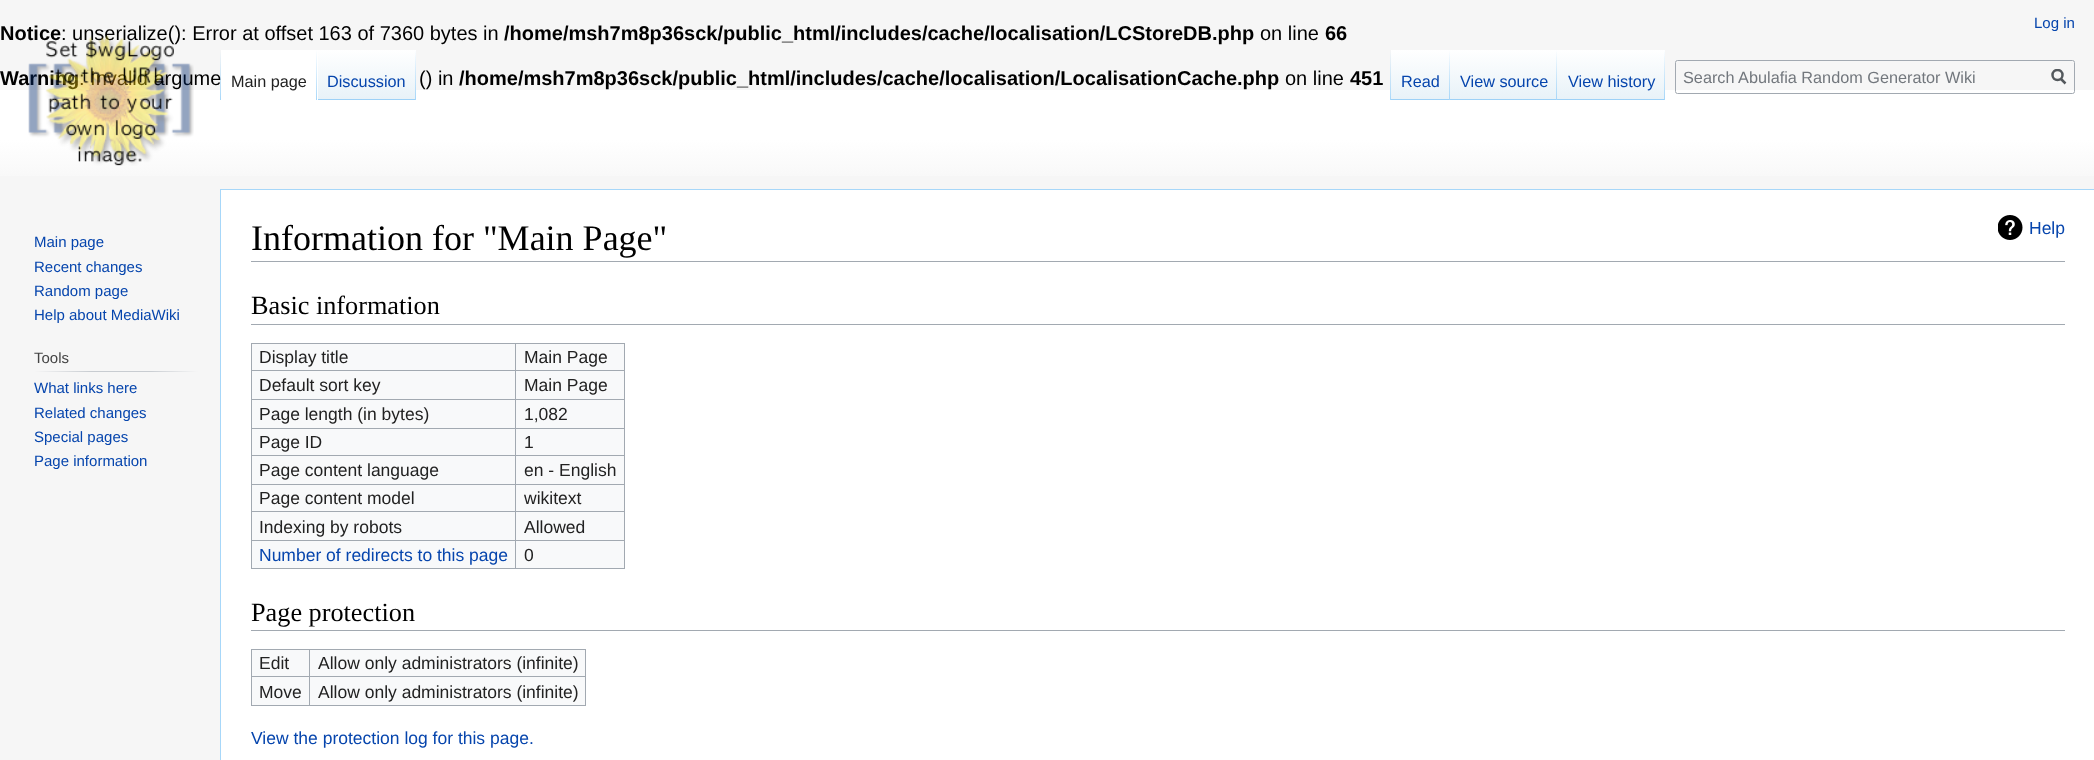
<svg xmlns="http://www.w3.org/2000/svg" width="2094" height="760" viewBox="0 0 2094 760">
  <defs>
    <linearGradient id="g1" gradientUnits="userSpaceOnUse" x1="1048" y1="90" x2="1048" y2="190"><stop offset="0.5" stop-color="#fff"/><stop offset="1" stop-color="#f6f6f6"/></linearGradient>
    <linearGradient id="g2" gradientUnits="userSpaceOnUse" x1="317" y1="50" x2="317" y2="100"><stop offset="0" stop-color="#fff"/><stop offset="1" stop-color="#a7d7f9"/></linearGradient>
    <linearGradient id="g3" gradientUnits="userSpaceOnUse" x1="367" y1="100" x2="367" y2="50"><stop offset="0" stop-color="#77c1f6"/><stop offset="0.03" stop-color="#e8f2f8"/><stop offset="1" stop-color="#fff"/></linearGradient>
    <linearGradient id="g4" gradientUnits="userSpaceOnUse" x1="416" y1="50" x2="416" y2="100"><stop offset="0" stop-color="#a7d7f9" stop-opacity="0"/><stop offset="1" stop-color="#a7d7f9"/></linearGradient>
    <linearGradient id="g5" gradientUnits="userSpaceOnUse" x1="1391" y1="50" x2="1391" y2="100"><stop offset="0" stop-color="#a7d7f9" stop-opacity="0"/><stop offset="1" stop-color="#a7d7f9"/></linearGradient>
    <linearGradient id="g6" gradientUnits="userSpaceOnUse" x1="1421" y1="100" x2="1421" y2="50"><stop offset="0" stop-color="#77c1f6"/><stop offset="0.03" stop-color="#e8f2f8"/><stop offset="1" stop-color="#fff"/></linearGradient>
    <linearGradient id="g7" gradientUnits="userSpaceOnUse" x1="1449" y1="50" x2="1449" y2="100"><stop offset="0" stop-color="#a7d7f9" stop-opacity="0"/><stop offset="1" stop-color="#a7d7f9"/></linearGradient>
    <linearGradient id="g8" gradientUnits="userSpaceOnUse" x1="1504" y1="100" x2="1504" y2="50"><stop offset="0" stop-color="#77c1f6"/><stop offset="0.03" stop-color="#e8f2f8"/><stop offset="1" stop-color="#fff"/></linearGradient>
    <linearGradient id="g9" gradientUnits="userSpaceOnUse" x1="1557" y1="50" x2="1557" y2="100"><stop offset="0" stop-color="#a7d7f9" stop-opacity="0"/><stop offset="1" stop-color="#a7d7f9"/></linearGradient>
    <linearGradient id="g10" gradientUnits="userSpaceOnUse" x1="1611" y1="100" x2="1611" y2="50"><stop offset="0" stop-color="#77c1f6"/><stop offset="0.03" stop-color="#e8f2f8"/><stop offset="1" stop-color="#fff"/></linearGradient>
    <linearGradient id="g11" gradientUnits="userSpaceOnUse" x1="1664" y1="50" x2="1664" y2="100"><stop offset="0" stop-color="#a7d7f9" stop-opacity="0"/><stop offset="1" stop-color="#a7d7f9"/></linearGradient>
    <clipPath id="clip1"><path d="M2051 69h15v16H2051z"/></clipPath>
    <linearGradient id="g12" gradientUnits="userSpaceOnUse" x1="34" y1="372" x2="198" y2="372"><stop offset="0" stop-color="#f6f6f6"/><stop offset="0.35" stop-color="#c8ccd1"/><stop offset="0.7" stop-color="#c8ccd1"/><stop offset="1" stop-color="#f6f6f6"/></linearGradient>
    <linearGradient id="g13" gradientUnits="userSpaceOnUse" x1="221" y1="50" x2="221" y2="100"><stop offset="0" stop-color="#a7d7f9" stop-opacity="0"/><stop offset="1" stop-color="#a7d7f9"/></linearGradient>
  </defs>
  <rect width="100%" height="100%" fill="#f6f6f6"/>
  <path d="M221 50h97v40H221z" fill="#fff"/>
  <path d="M0 90h2094v86H0z" fill="url(#g1)"/>
  <path d="M316 50h1v50H316z" fill="url(#g2)"/>
  <path d="M318 50h98v50H318z" fill="url(#g3)"/>
  <path d="M415 50h1v50H415z" fill="url(#g4)"/>
  <path d="M1390 50h1v50H1390z" fill="url(#g5)"/>
  <path d="M1391 50h59v50H1391z" fill="url(#g6)"/>
  <path d="M1449 50h1v50H1449z" fill="url(#g7)"/>
  <path d="M1450 50h108v50H1450z" fill="url(#g8)"/>
  <path d="M1556 50h1v50H1556z" fill="url(#g9)"/>
  <path d="M1558 50h107v50H1558z" fill="url(#g10)"/>
  <path d="M1664 50h1v50H1664z" fill="url(#g11)"/>
  <rect x="1675.5" y="60.5" width="399" height="33" rx="2" fill="none" stroke="#a2a9b1"/>
  <path d="M2065.5 83.5L2060.5 78.5" fill="none" stroke="#54595d" stroke-width="2.5"/>
  <g clip-path="url(#clip1)">
    <circle cx="2057.5" cy="75" r="5" fill="none" stroke="#54595d" stroke-width="2.5"/>
  </g>
  <path d="M34 371h164v1H34z" fill="url(#g12)"/>
  <path d="M221 190h1873v570H221z" fill="#fff"/>
  <path d="M220 189h1874v1H220z" fill="#a7d7f9"/>
  <path d="M220 189h1v571H220z" fill="#a7d7f9"/>
  <path d="M251 261h1814v1H251z" fill="#a2a9b1"/>
  <image x="1998" y="215" width="25" height="25" href="img/2.png"/>
  <path d="M251 324h1814v1H251z" fill="#a2a9b1"/>
  <path d="M252 344h372v224H252z" fill="#f8f9fa"/>
  <path d="M251 343h374v1H251z" fill="#a2a9b1"/>
  <path d="M624 343h1v226H624z" fill="#a2a9b1"/>
  <path d="M251 568h374v1H251z" fill="#a2a9b1"/>
  <path d="M251 343h1v226H251z" fill="#a2a9b1"/>
  <path d="M515 370h110v1H515z" fill="#a2a9b1"/>
  <path d="M515 399h110v1H515z" fill="#a2a9b1"/>
  <path d="M515 428h110v1H515z" fill="#a2a9b1"/>
  <path d="M515 455h110v1H515z" fill="#a2a9b1"/>
  <path d="M515 484h110v1H515z" fill="#a2a9b1"/>
  <path d="M515 511h110v1H515z" fill="#a2a9b1"/>
  <path d="M515 540h110v1H515z" fill="#a2a9b1"/>
  <path d="M515 540h1v29H515z" fill="#a2a9b1"/>
  <path d="M251 540h265v1H251z" fill="#a2a9b1"/>
  <path d="M515 511h1v30H515z" fill="#a2a9b1"/>
  <path d="M251 511h265v1H251z" fill="#a2a9b1"/>
  <path d="M515 484h1v29H515z" fill="#a2a9b1"/>
  <path d="M251 484h265v1H251z" fill="#a2a9b1"/>
  <path d="M515 455h1v30H515z" fill="#a2a9b1"/>
  <path d="M251 455h265v1H251z" fill="#a2a9b1"/>
  <path d="M515 428h1v28H515z" fill="#a2a9b1"/>
  <path d="M251 428h265v1H251z" fill="#a2a9b1"/>
  <path d="M515 399h1v30H515z" fill="#a2a9b1"/>
  <path d="M251 399h265v1H251z" fill="#a2a9b1"/>
  <path d="M515 370h1v30H515z" fill="#a2a9b1"/>
  <path d="M251 370h265v1H251z" fill="#a2a9b1"/>
  <path d="M515 343h1v28H515z" fill="#a2a9b1"/>
  <path d="M251 630h1814v1H251z" fill="#a2a9b1"/>
  <path d="M252 650h333v55H252z" fill="#f8f9fa"/>
  <path d="M251 649h335v1H251z" fill="#a2a9b1"/>
  <path d="M585 649h1v57H585z" fill="#a2a9b1"/>
  <path d="M251 705h335v1H251z" fill="#a2a9b1"/>
  <path d="M251 649h1v57H251z" fill="#a2a9b1"/>
  <path d="M309 676h277v1H309z" fill="#a2a9b1"/>
  <path d="M309 676h1v30H309z" fill="#a2a9b1"/>
  <path d="M251 676h59v1H251z" fill="#a2a9b1"/>
  <path d="M309 649h1v29H309z" fill="#a2a9b1"/>
  <text x="0" y="40" font-family="Liberation Sans" font-size="20" font-weight="bold" fill="#000">Notice</text>
  <text x="2034" y="28" font-family="Liberation Sans" font-size="15" fill="#0645ad">Log in</text>
  <text x="231" y="87" font-family="Liberation Sans" font-size="16.25" fill="#222">Main page</text>
  <g font-family="Liberation Sans" font-size="16.25" fill="#0645ad">
    <text x="327" y="87">Discussion</text>
    <text x="1401" y="87">Read</text>
    <text x="1460" y="87">View source</text>
    <text x="1568" y="87">View history</text>
  </g>
  <text x="1683" y="83" font-family="Liberation Sans" font-size="16.25" fill="#72777d">Search Abulafia Random Generator Wiki</text>
  <g font-family="Liberation Sans" font-size="15" fill="#0645ad">
    <text x="34" y="247">Main page</text>
    <text x="34" y="272">Recent changes</text>
    <text x="34" y="296">Random page</text>
    <text x="34" y="320">Help about MediaWiki</text>
  </g>
  <text x="34" y="363" font-family="Liberation Sans" font-size="15" fill="#444">Tools</text>
  <g font-family="Liberation Sans" font-size="15" fill="#0645ad">
    <text x="34" y="393">What links here</text>
    <text x="34" y="418">Related changes</text>
    <text x="34" y="442">Special pages</text>
    <text x="34" y="466">Page information</text>
  </g>
  <text x="61" y="40" font-family="Liberation Sans" font-size="20" fill="#000">: unserialize(): Error at offset 163 of 7360 bytes in</text>
  <text x="504" y="40" font-family="Liberation Sans" font-size="20" font-weight="bold" fill="#000">/home/msh7m8p36sck/public_html/includes/cache/localisation/LCStoreDB.php</text>
  <text x="1260" y="40" font-family="Liberation Sans" font-size="20" fill="#000">on line</text>
  <g font-family="Liberation Sans" font-size="20" font-weight="bold" fill="#000">
    <text x="1325" y="40">66</text>
    <text x="0" y="85">Warning</text>
  </g>
  <text x="79" y="85" font-family="Liberation Sans" font-size="20" fill="#000">: Invalid argume</text>
  <image x="28" y="35" width="166" height="131" href="img/1.png"/>
  <path d="M220 50h1v50H220z" fill="url(#g13)"/>
  <text x="419" y="85" font-family="Liberation Sans" font-size="20" fill="#000">() in</text>
  <text x="459" y="85" font-family="Liberation Sans" font-size="20" font-weight="bold" fill="#000">/home/msh7m8p36sck/public_html/includes/cache/localisation/LocalisationCache.php</text>
  <text x="1285" y="85" font-family="Liberation Sans" font-size="20" fill="#000">on line</text>
  <text x="1350" y="85" font-family="Liberation Sans" font-size="20" font-weight="bold" fill="#000">451</text>
  <text x="251" y="250" font-family="Liberation Serif" font-size="36" fill="#000">Information for "Main Page"</text>
  <text x="2029" y="234" font-family="Liberation Sans" font-size="17.5" fill="#0645ad">Help</text>
  <text x="251" y="314" font-family="Liberation Serif" font-size="26.25" fill="#000">Basic information</text>
  <g font-family="Liberation Sans" font-size="17.5" fill="#222">
    <text x="259" y="363">Display title</text>
    <text x="524" y="363">Main Page</text>
    <text x="259" y="391">Default sort key</text>
    <text x="524" y="391">Main Page</text>
    <text x="259" y="420">Page length (in bytes)</text>
    <text x="524" y="420">1,082</text>
    <text x="259" y="448">Page ID</text>
    <text x="524" y="448">1</text>
    <text x="259" y="476">Page content language</text>
    <text x="524" y="476">en - English</text>
    <text x="259" y="504">Page content model</text>
    <text x="524" y="504">wikitext</text>
    <text x="259" y="533">Indexing by robots</text>
    <text x="524" y="533">Allowed</text>
  </g>
  <text x="259" y="561" font-family="Liberation Sans" font-size="17.5" fill="#0645ad">Number of redirects to this page</text>
  <text x="524" y="561" font-family="Liberation Sans" font-size="17.5" fill="#222">0</text>
  <text x="251" y="621" font-family="Liberation Serif" font-size="26.25" fill="#000">Page protection</text>
  <g font-family="Liberation Sans" font-size="17.5" fill="#222">
    <text x="259" y="669">Edit</text>
    <text x="318" y="669">Allow only administrators (infinite)</text>
    <text x="259" y="698">Move</text>
    <text x="318" y="698">Allow only administrators (infinite)</text>
  </g>
  <text x="251" y="744" font-family="Liberation Sans" font-size="17.5" fill="#0645ad">View the protection log for this page.</text>
</svg>
